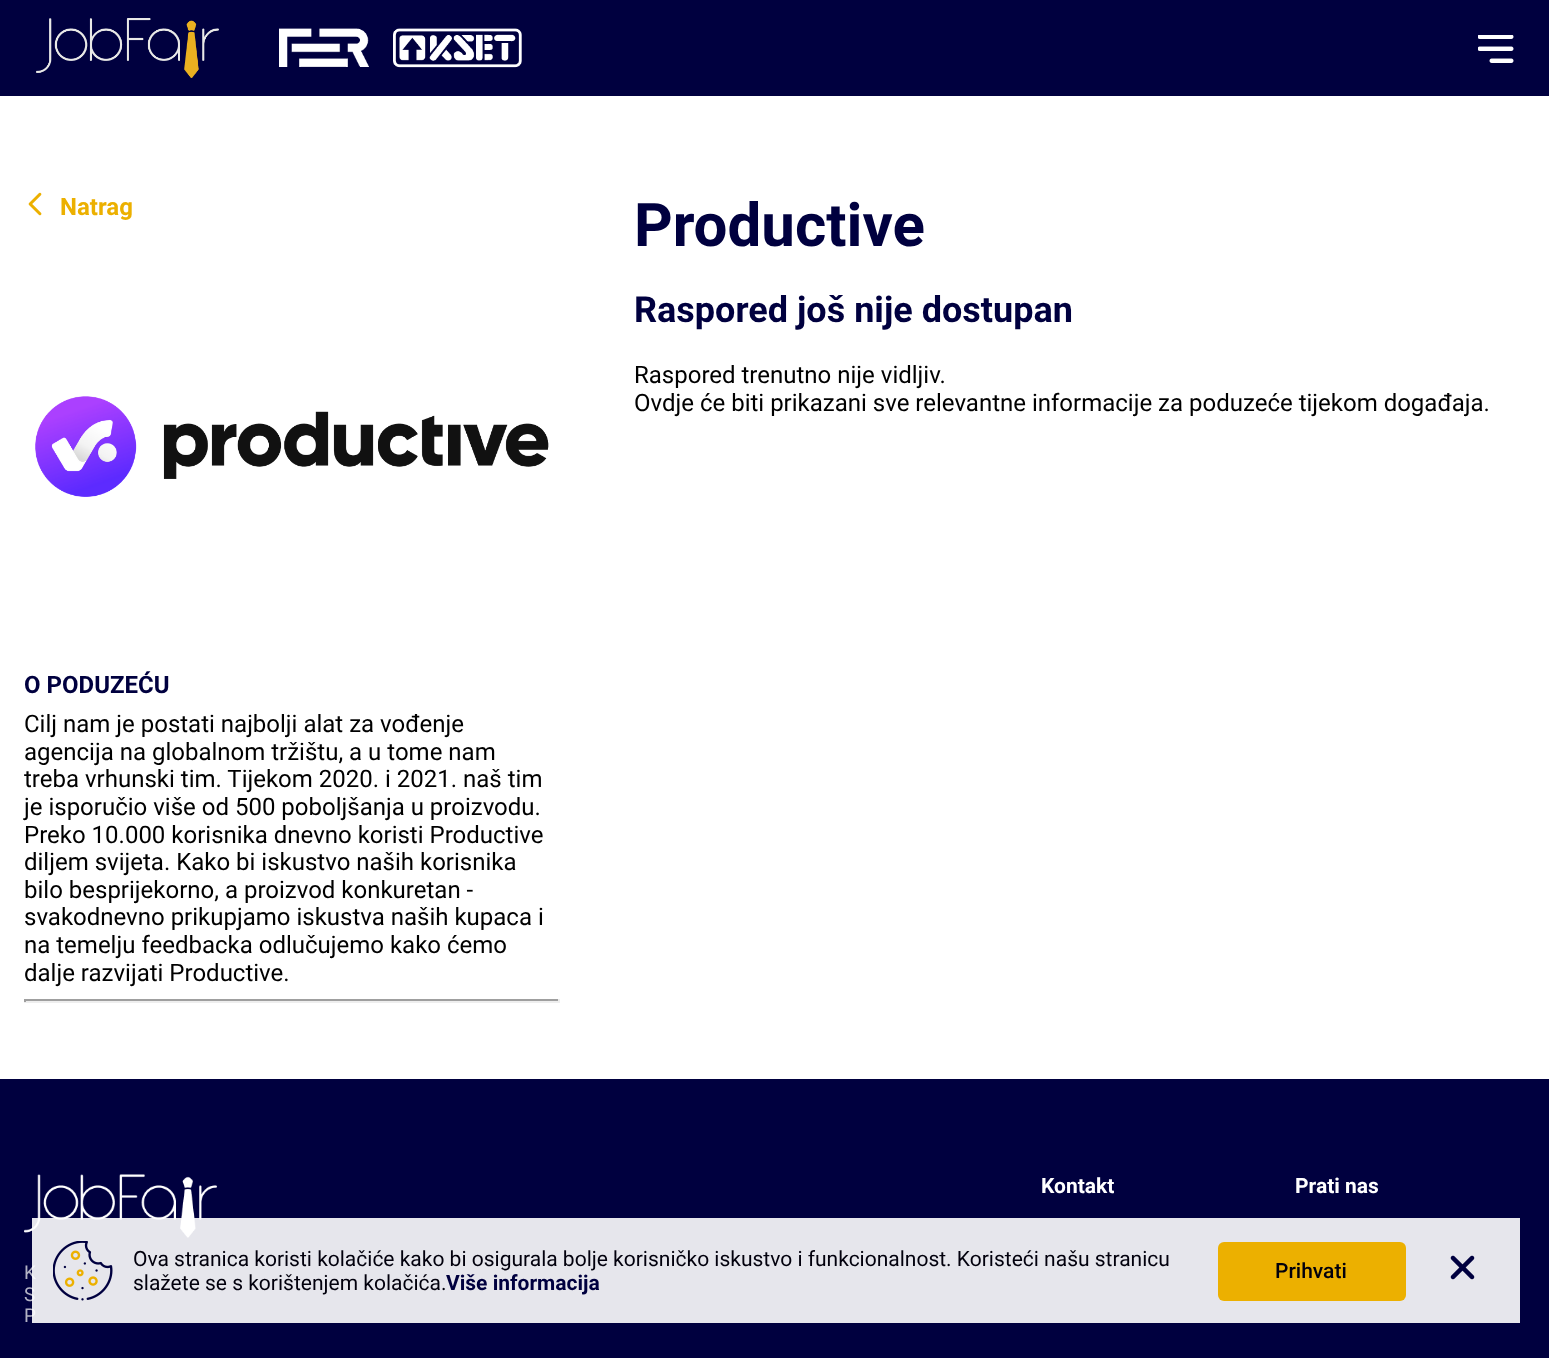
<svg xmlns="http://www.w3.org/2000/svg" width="1549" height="1358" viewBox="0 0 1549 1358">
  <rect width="100%" height="100%" fill="#fff"/>
  <path d="M0 0h1549v96H0z" fill="#00003f"/>
  <image x="36" y="18" width="183" height="60" href="img/1.png"/>
  <image x="279" y="28" width="90" height="39" href="img/2.png"/>
  <image x="393" y="28" width="129" height="40" href="img/3.png"/>
  <image x="1478" y="35" width="36" height="28" href="img/4.png"/>
  <image x="28" y="192" width="14" height="24" href="img/5.png"/>
  <image x="35" y="396" width="514" height="101" href="img/6.png"/>
  <path d="M24 999h536v2H24z" fill="#9f9f9f"/>
  <path d="M558 999h2v3H558z" fill="#eee"/>
  <path d="M24 1001h536v2H24z" fill="#eee"/>
  <path d="M24 999h2v3H24z" fill="#9f9f9f"/>
  <path d="M0 1079h1549v279H0z" fill="#00003f"/>
  <image x="24" y="1174" width="194" height="64" href="img/7.png"/>
  <text x="60" y="215" font-family="Roboto" font-size="24" font-weight="bold" fill="#ecb000">Natrag</text>
  <text x="24" y="693" font-family="Roboto" font-size="24" font-weight="bold" fill="#00003f">O PODUZEĆU</text>
  <g font-family="Roboto" font-size="24" fill="#000">
    <text x="24" y="732">Cilj nam je postati najbolji alat za vođenje</text>
    <text x="24" y="760">agencija na globalnom tržištu, a u tome nam</text>
    <text x="24" y="787">treba vrhunski tim. Tijekom 2020. i 2021. naš tim</text>
    <text x="24" y="815">je isporučio više od 500 poboljšanja u proizvodu.</text>
    <text x="24" y="843">Preko 10.000 korisnika dnevno koristi Productive</text>
    <text x="24" y="870">diljem svijeta. Kako bi iskustvo naših korisnika</text>
    <text x="24" y="898">bilo besprijekorno, a proizvod konkuretan -</text>
    <text x="24" y="925">svakodnevno prikupjamo iskustva naših kupaca i</text>
    <text x="24" y="953">na temelju feedbacka odlučujemo kako ćemo</text>
    <text x="24" y="981">dalje razvijati Productive.</text>
  </g>
  <text x="634" y="246" font-family="Roboto" font-size="60" font-weight="bold" fill="#00003f">Productive</text>
  <text x="634" y="322" font-family="Roboto" font-size="36" font-weight="bold" fill="#00003f">Raspored još nije dostupan</text>
  <g font-family="Roboto" font-size="24" fill="#000">
    <text x="634" y="383">Raspored trenutno nije vidljiv.</text>
    <text x="634" y="411">Ovdje će biti prikazani sve relevantne informacije za poduzeće tijekom događaja.</text>
  </g>
  <g font-family="Roboto" font-size="21" font-weight="bold" fill="#fff">
    <text x="1041" y="1193">Kontakt</text>
    <text x="1295" y="1193">Prati nas</text>
  </g>
  <g font-family="Roboto" font-size="19" fill="#b3b3c5">
    <text x="24" y="1279">K</text>
    <text x="24" y="1301">S</text>
    <text x="24" y="1322">P</text>
  </g>
  <path d="M32 1218h1488v105H32z" fill="#ffffffe6"/>
  <image x="53" y="1241" width="60" height="60" href="img/8.png"/>
  <g font-family="Roboto" font-size="21" fill="#02000d">
    <text x="133" y="1266">Ova stranica koristi kolačiće kako bi osigurala bolje korisničko iskustvo i funkcionalnost. Koristeći našu stranicu</text>
    <text x="133" y="1290">slažete se s korištenjem kolačića.</text>
  </g>
  <text x="446" y="1290" font-family="Roboto" font-size="21" font-weight="bold" fill="#00003f">Više informacija</text>
  <rect x="1218" y="1242" width="188" height="59" rx="6" fill="#ecb000"/>
  <text x="1275" y="1278" font-family="Roboto" font-size="21" font-weight="500" fill="#02000d">Prihvati</text>
  <image x="1450" y="1255" width="25" height="25" href="img/9.png"/>
</svg>
